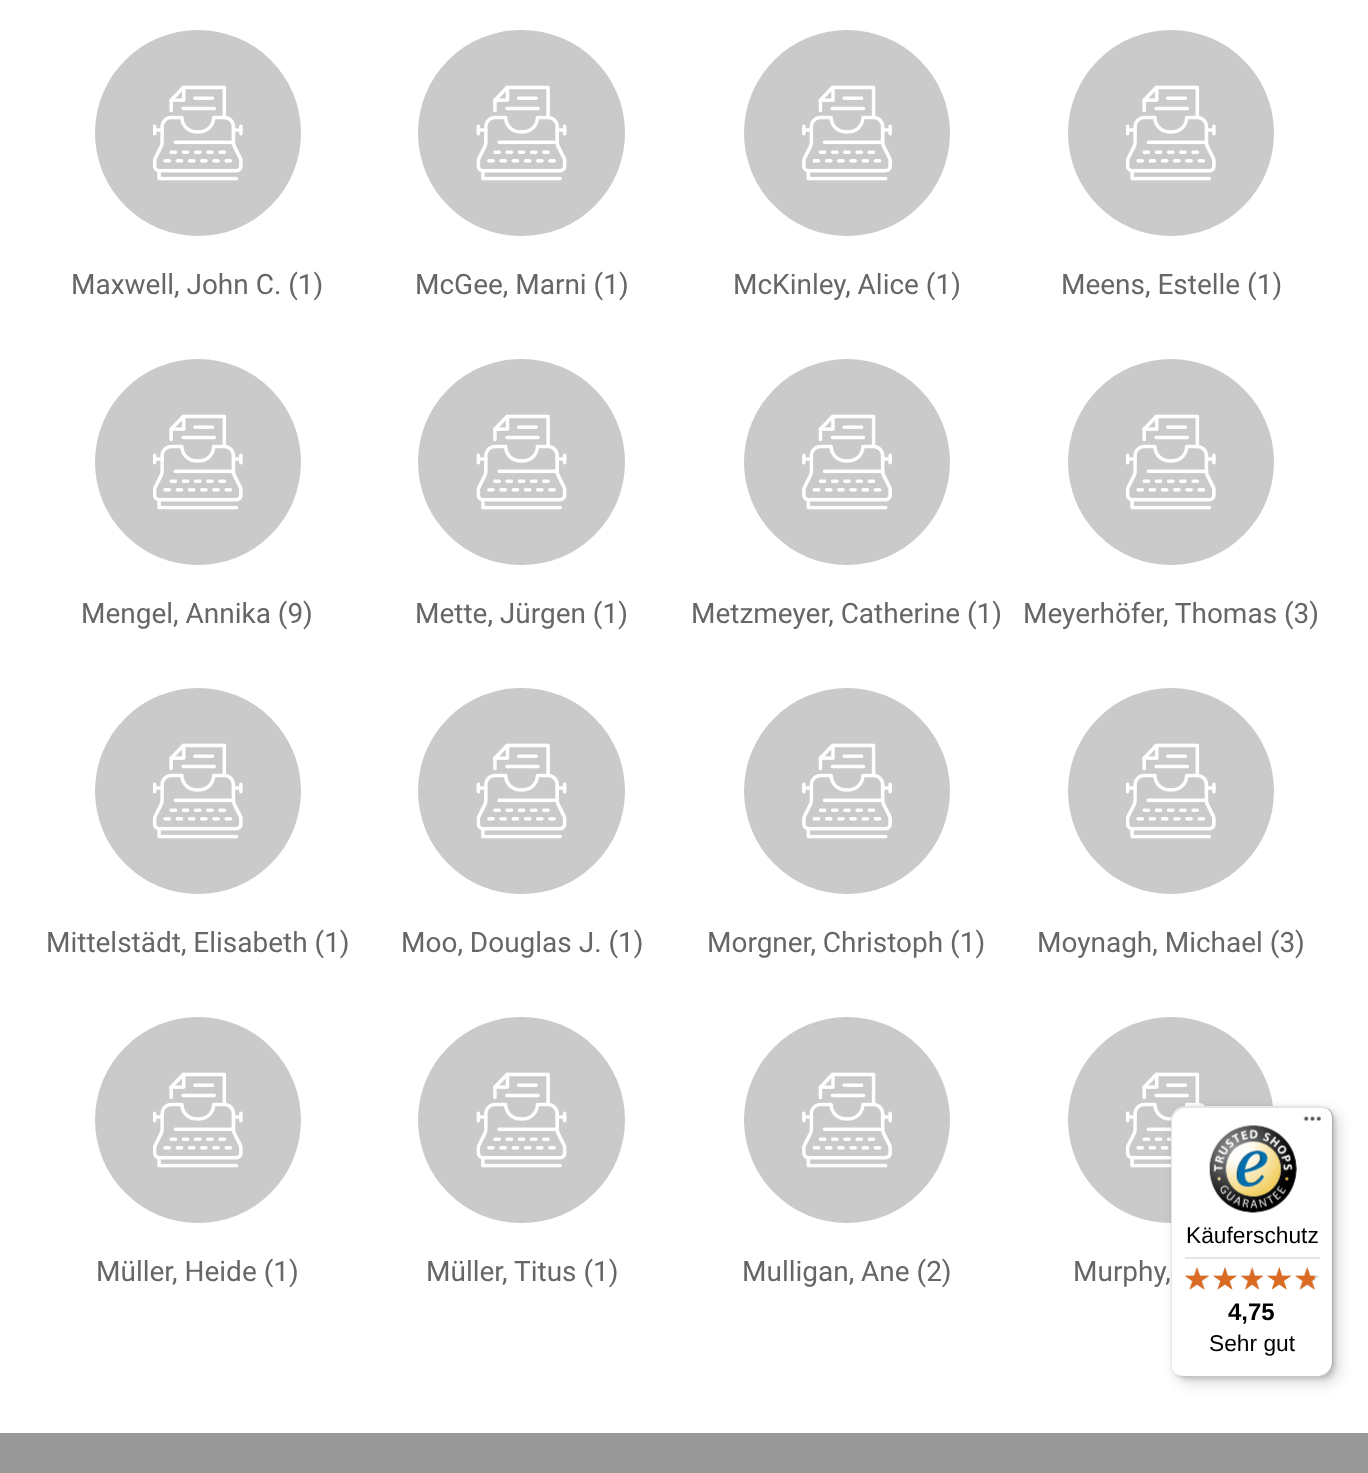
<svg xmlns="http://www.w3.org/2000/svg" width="1368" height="1473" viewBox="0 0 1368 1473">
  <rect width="100%" height="100%" fill="#fff"/>
  <circle cx="198" cy="133" r="103" fill="#cacaca"/>
  <image x="153" y="85" width="90" height="96" href="img/1.png"/>
  <rect x="418" y="30" width="207" height="206" rx="103" fill="#cacaca"/>
  <image x="476" y="85" width="91" height="96" href="img/2.png"/>
  <circle cx="847" cy="133" r="103" fill="#cacaca"/>
  <image x="802" y="85" width="90" height="96" href="img/3.png"/>
  <circle cx="1171" cy="133" r="103" fill="#cacaca"/>
  <image x="1126" y="85" width="90" height="96" href="img/1.png"/>
  <circle cx="198" cy="462" r="103" fill="#cacaca"/>
  <image x="153" y="414" width="90" height="96" href="img/1.png"/>
  <rect x="418" y="359" width="207" height="206" rx="103" fill="#cacaca"/>
  <image x="476" y="414" width="91" height="96" href="img/2.png"/>
  <circle cx="847" cy="462" r="103" fill="#cacaca"/>
  <image x="802" y="414" width="90" height="96" href="img/3.png"/>
  <circle cx="1171" cy="462" r="103" fill="#cacaca"/>
  <image x="1126" y="414" width="90" height="96" href="img/1.png"/>
  <circle cx="198" cy="791" r="103" fill="#cacaca"/>
  <image x="153" y="743" width="90" height="96" href="img/1.png"/>
  <rect x="418" y="688" width="207" height="206" rx="103" fill="#cacaca"/>
  <image x="476" y="743" width="91" height="96" href="img/2.png"/>
  <circle cx="847" cy="791" r="103" fill="#cacaca"/>
  <image x="802" y="743" width="90" height="96" href="img/3.png"/>
  <circle cx="1171" cy="791" r="103" fill="#cacaca"/>
  <image x="1126" y="743" width="90" height="96" href="img/1.png"/>
  <circle cx="198" cy="1120" r="103" fill="#cacaca"/>
  <image x="153" y="1072" width="90" height="96" href="img/1.png"/>
  <rect x="418" y="1017" width="207" height="206" rx="103" fill="#cacaca"/>
  <image x="476" y="1072" width="91" height="96" href="img/2.png"/>
  <circle cx="847" cy="1120" r="103" fill="#cacaca"/>
  <image x="802" y="1072" width="90" height="96" href="img/3.png"/>
  <circle cx="1171" cy="1120" r="103" fill="#cacaca"/>
  <image x="1126" y="1072" width="79" height="96" href="img/4.png"/>
  <path d="M0 1433h1368v40H0z" fill="#989898"/>
  <rect x="1176" y="1111" width="163" height="272" rx="14" fill="#00000026" filter="blur(7px)"/>
  <rect x="1173" y="1108" width="162" height="271" rx="14" fill="#00000026" filter="blur(2px)"/>
  <rect x="1171" y="1106" width="163" height="271" rx="14" fill="#fff"/>
  <path d="M1186 1108H1321C1326 1108 1330 1110 1333 1114C1330 1109 1326 1106 1320 1106H1185C1177 1106 1171 1112 1171 1120V1363C1171 1366 1172 1368 1173 1370C1172 1369 1172 1367 1172 1365V1122C1172 1114 1179 1108 1186 1108Z" fill="#0000001a"/>
  <path d="M1178 1375C1180 1376 1182 1377 1185 1377H1320C1328 1377 1334 1371 1334 1363V1120C1334 1115 1331 1110 1327 1108C1330 1111 1332 1114 1332 1118V1362C1332 1369 1325 1376 1318 1376H1183C1181 1376 1179 1376 1178 1375Z" fill="#00000033"/>
  <path d="M1176 1373C1178 1376 1181 1377 1185 1377H1320C1328 1377 1334 1371 1334 1363V1120C1334 1114 1331 1110 1326 1107C1330 1110 1332 1114 1332 1119V1362C1332 1370 1326 1376 1318 1376H1184C1181 1376 1178 1375 1176 1373Z" fill="#32323233"/>
  <path d="M1176 1373C1178 1376 1181 1377 1185 1377H1320C1328 1377 1334 1371 1334 1363V1120C1334 1115 1332 1111 1328 1109C1331 1111 1333 1115 1333 1119V1362C1333 1370 1326 1376 1319 1376H1184C1181 1376 1178 1375 1176 1373Z" fill="#ffffff4d"/>
  <image x="1303" y="1116" width="18" height="5" href="img/5.png"/>
  <image x="1209" y="1125" width="88" height="88" href="img/6.png"/>
  <path d="M1185 1257h135v2H1185z" fill="#e5e5e5"/>
  <image x="1185" y="1267" width="24" height="23" href="img/12.png"/>
  <image x="1184" y="1267" width="25" height="23" href="img/7.png"/>
  <image x="1213" y="1267" width="24" height="23" href="img/13.png"/>
  <image x="1213" y="1267" width="24" height="23" href="img/8.png"/>
  <image x="1241" y="1267" width="22" height="23" href="img/14.png"/>
  <image x="1240" y="1267" width="24" height="23" href="img/9.png"/>
  <image x="1267" y="1267" width="24" height="23" href="img/15.png"/>
  <image x="1267" y="1267" width="24" height="23" href="img/10.png"/>
  <image x="1295" y="1267" width="24" height="23" href="img/16.png"/>
  <image x="1295" y="1267" width="20" height="23" href="img/11.png"/>
  <g font-family="Roboto" font-size="28" fill="#666">
    <text x="71" y="294">Maxwell, John C. (1)</text>
    <text x="415" y="294">McGee, Marni (1)</text>
    <text x="733" y="294">McKinley, Alice (1)</text>
    <text x="1061" y="294">Meens, Estelle (1)</text>
    <text x="81" y="623">Mengel, Annika (9)</text>
    <text x="415" y="623">Mette, Jürgen (1)</text>
    <text x="691" y="623">Metzmeyer, Catherine (1)</text>
    <text x="1023" y="623">Meyerhöfer, Thomas (3)</text>
    <text x="46" y="952">Mittelstädt, Elisabeth (1)</text>
    <text x="401" y="952">Moo, Douglas J. (1)</text>
    <text x="707" y="952">Morgner, Christoph (1)</text>
    <text x="1037" y="952">Moynagh, Michael (3)</text>
    <text x="96" y="1281">Müller, Heide (1)</text>
    <text x="426" y="1281">Müller, Titus (1)</text>
    <text x="742" y="1281">Mulligan, Ane (2)</text>
    <text x="1073" y="1281">Murphy,</text>
  </g>
  <text x="1186" y="1243" font-family="Liberation Sans" font-size="22.75" fill="#000">Käuferschutz</text>
  <text x="1228" y="1320" font-family="Liberation Sans" font-size="24" font-weight="bold" fill="#000">4,75</text>
  <text x="1209" y="1351" font-family="Liberation Sans" font-size="22.75" fill="#000">Sehr gut</text>
</svg>
